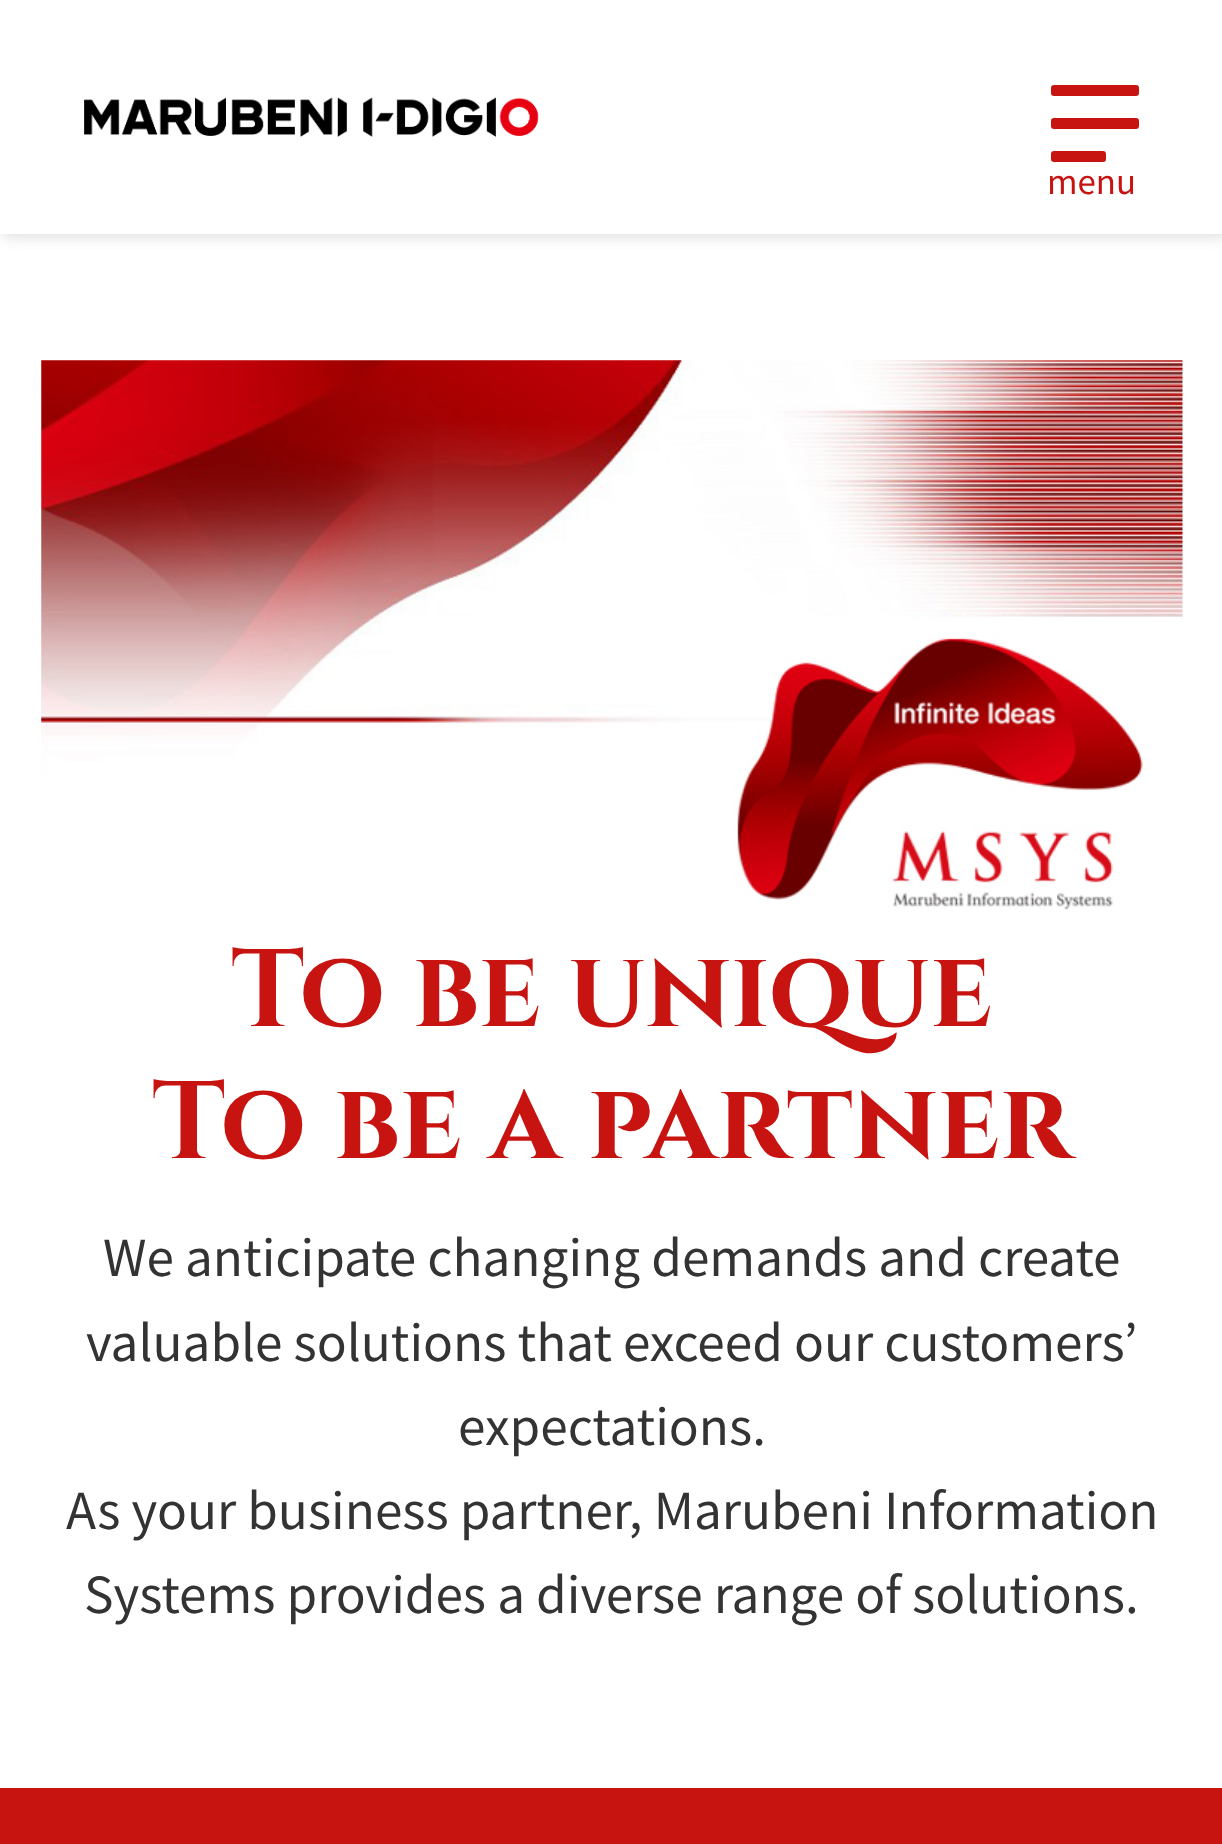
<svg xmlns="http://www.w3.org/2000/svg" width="1222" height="1844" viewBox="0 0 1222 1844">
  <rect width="100%" height="100%" fill="#fff"/>
  <path d="M3 3h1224v234H3z" fill="#ddd" filter="blur(7px)"/>
  <path d="M0 0h1222v234H0z" fill="#fff"/>
  <image x="84" y="97" width="455" height="40" href="img/1.png"/>
  <rect x="1051" y="85" width="88" height="11" rx="3" fill="#c81411"/>
  <rect x="1051" y="118" width="88" height="11" rx="3" fill="#c81411"/>
  <rect x="1051" y="151" width="55" height="11" rx="3" fill="#c81411"/>
  <image x="41" y="360" width="1142" height="550" href="img/2.png"/>
  <path d="M0 1788h1222v56H0z" fill="#c81411"/>
  <text x="1047" y="194" font-family="Noto Sans JP" font-size="33" fill="#c81411">menu</text>
  <g font-family="Cinzel" font-size="110" font-weight="bold" fill="#c81411">
    <text x="231" y="1026">To be unique</text>
    <text x="152" y="1158">To be a partner</text>
  </g>
  <g font-family="Noto Sans JP" font-size="49.5" fill="#333">
    <text x="103" y="1276">We anticipate changing demands and create</text>
    <text x="86" y="1361">valuable solutions that exceed our customers’</text>
    <text x="458" y="1445">expectations.</text>
    <text x="66" y="1529">As your business partner, Marubeni Information</text>
    <text x="84" y="1613">Systems provides a diverse range of solutions.</text>
  </g>
</svg>
